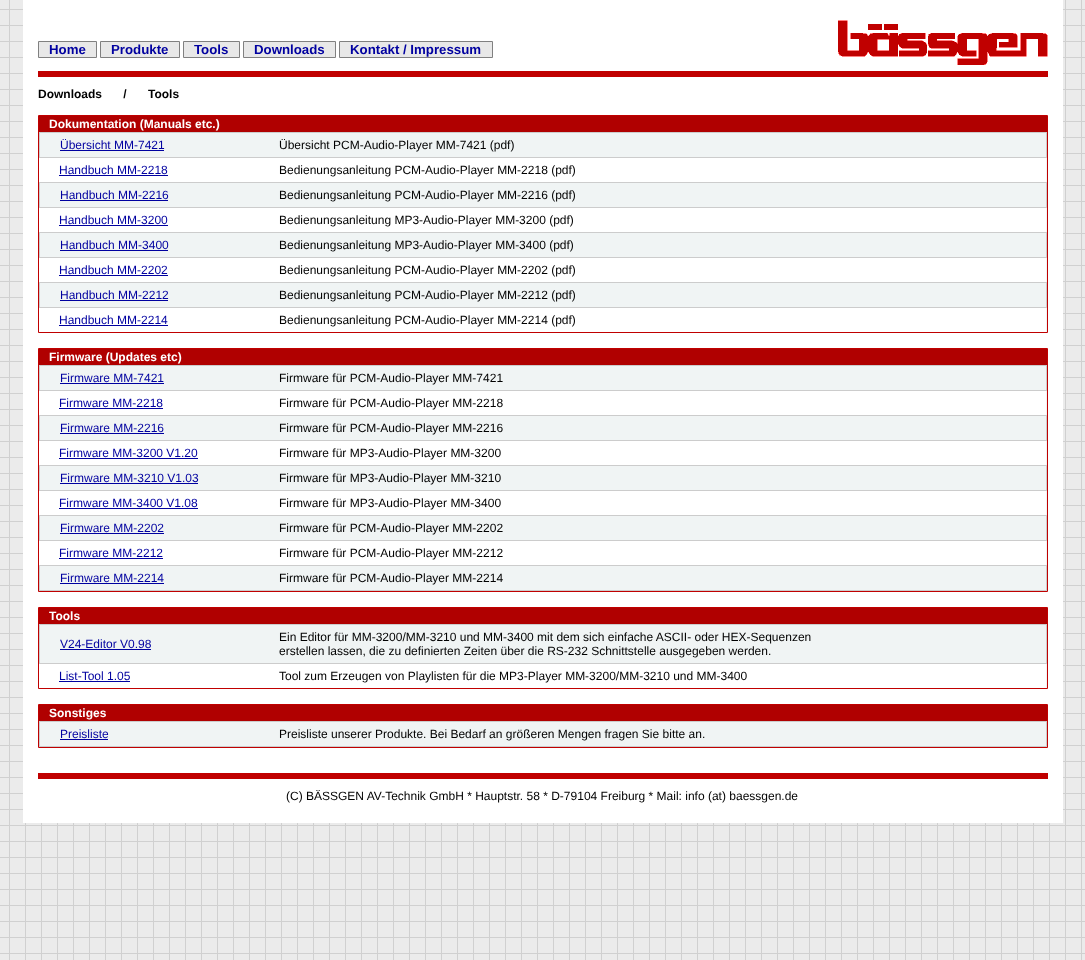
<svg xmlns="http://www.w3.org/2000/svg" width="1085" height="960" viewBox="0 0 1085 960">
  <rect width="100%" height="100%" fill="#fff"/>
  <image x="0" y="0" width="1085" height="960" href="img/1.png"/>
  <path d="M23 0h1040v823H23z" fill="#fff"/>
  <path d="M38.5 41.5h58v16H38.5z" fill="#e8e8e8" stroke="#808080"/>
  <path d="M100.5 41.5h79v16H100.5z" fill="#e8e8e8" stroke="#808080"/>
  <path d="M183.5 41.5h56v16H183.5z" fill="#e8e8e8" stroke="#808080"/>
  <path d="M243.5 41.5h92v16H243.5z" fill="#e8e8e8" stroke="#808080"/>
  <path d="M339.5 41.5h153v16H339.5z" fill="#e8e8e8" stroke="#808080"/>
  <image x="838" y="20" width="210" height="45" href="img/2.png"/>
  <path d="M38 71h1010v6H38z" fill="#c00000"/>
  <path d="M40 133h1007v199H40z" fill="#f0f4f4"/>
  <path d="M38.5 115.5h1009v217H38.5z" fill="none" stroke="#c00000"/>
  <path d="M39 116h1008v16H39z" fill="#b00000"/>
  <path d="M39 132h1008v1H39z" fill="#ccc"/>
  <path d="M1046 132h1v26H1046z" fill="#ccc"/>
  <path d="M39 157h1008v1H39z" fill="#ccc"/>
  <path d="M39 132h1v26H39z" fill="#ccc"/>
  <path d="M60 150h104v1H60z" fill="#0000a0"/>
  <path d="M40 158h1006v24H40z" fill="#fff"/>
  <path d="M59 175h109v1H59z" fill="#0000a0"/>
  <path d="M39 182h1008v1H39z" fill="#ccc"/>
  <path d="M1046 182h1v26H1046z" fill="#ccc"/>
  <path d="M39 207h1008v1H39z" fill="#ccc"/>
  <path d="M39 182h1v26H39z" fill="#ccc"/>
  <path d="M60 200h108v1H60z" fill="#0000a0"/>
  <path d="M40 208h1006v24H40z" fill="#fff"/>
  <path d="M59 225h109v1H59z" fill="#0000a0"/>
  <path d="M39 232h1008v1H39z" fill="#ccc"/>
  <path d="M1046 232h1v26H1046z" fill="#ccc"/>
  <path d="M39 257h1008v1H39z" fill="#ccc"/>
  <path d="M39 232h1v26H39z" fill="#ccc"/>
  <path d="M60 250h108v1H60z" fill="#0000a0"/>
  <path d="M40 258h1006v24H40z" fill="#fff"/>
  <path d="M59 275h109v1H59z" fill="#0000a0"/>
  <path d="M39 282h1008v1H39z" fill="#ccc"/>
  <path d="M1046 282h1v26H1046z" fill="#ccc"/>
  <path d="M39 307h1008v1H39z" fill="#ccc"/>
  <path d="M39 282h1v26H39z" fill="#ccc"/>
  <path d="M60 300h108v1H60z" fill="#0000a0"/>
  <path d="M40 308h1006v24H40z" fill="#fff"/>
  <path d="M59 325h109v1H59z" fill="#0000a0"/>
  <path d="M40 366h1007v224H40z" fill="#f0f4f4"/>
  <path d="M38.5 348.5h1009v243H38.5z" fill="none" stroke="#c00000"/>
  <path d="M39 349h1008v16H39z" fill="#b00000"/>
  <path d="M39 365h1008v1H39z" fill="#ccc"/>
  <path d="M1046 365h1v26H1046z" fill="#ccc"/>
  <path d="M39 390h1008v1H39z" fill="#ccc"/>
  <path d="M39 365h1v26H39z" fill="#ccc"/>
  <path d="M60 383h104v1H60z" fill="#0000a0"/>
  <path d="M40 391h1006v24H40z" fill="#fff"/>
  <path d="M59 408h104v1H59z" fill="#0000a0"/>
  <path d="M39 415h1008v1H39z" fill="#ccc"/>
  <path d="M1046 415h1v26H1046z" fill="#ccc"/>
  <path d="M39 440h1008v1H39z" fill="#ccc"/>
  <path d="M39 415h1v26H39z" fill="#ccc"/>
  <path d="M60 433h104v1H60z" fill="#0000a0"/>
  <path d="M40 441h1006v24H40z" fill="#fff"/>
  <path d="M59 458h139v1H59z" fill="#0000a0"/>
  <path d="M39 465h1008v1H39z" fill="#ccc"/>
  <path d="M1046 465h1v26H1046z" fill="#ccc"/>
  <path d="M39 490h1008v1H39z" fill="#ccc"/>
  <path d="M39 465h1v26H39z" fill="#ccc"/>
  <path d="M60 483h138v1H60z" fill="#0000a0"/>
  <path d="M40 491h1006v24H40z" fill="#fff"/>
  <path d="M59 508h139v1H59z" fill="#0000a0"/>
  <path d="M39 515h1008v1H39z" fill="#ccc"/>
  <path d="M1046 515h1v26H1046z" fill="#ccc"/>
  <path d="M39 540h1008v1H39z" fill="#ccc"/>
  <path d="M39 515h1v26H39z" fill="#ccc"/>
  <path d="M60 533h104v1H60z" fill="#0000a0"/>
  <path d="M40 541h1006v24H40z" fill="#fff"/>
  <path d="M59 558h104v1H59z" fill="#0000a0"/>
  <path d="M39 565h1008v1H39z" fill="#ccc"/>
  <path d="M1046 565h1v26H1046z" fill="#ccc"/>
  <path d="M39 590h1008v1H39z" fill="#ccc"/>
  <path d="M39 565h1v26H39z" fill="#ccc"/>
  <path d="M60 583h104v1H60z" fill="#0000a0"/>
  <path d="M40 625h1007v63H40z" fill="#f0f4f4"/>
  <path d="M38.5 607.5h1009v81H38.5z" fill="none" stroke="#c00000"/>
  <path d="M39 608h1008v16H39z" fill="#b00000"/>
  <path d="M39 624h1008v1H39z" fill="#ccc"/>
  <path d="M1046 624h1v40H1046z" fill="#ccc"/>
  <path d="M39 663h1008v1H39z" fill="#ccc"/>
  <path d="M39 624h1v40H39z" fill="#ccc"/>
  <path d="M60 649h91v1H60z" fill="#0000a0"/>
  <path d="M40 664h1006v24H40z" fill="#fff"/>
  <path d="M59 681h71v1H59z" fill="#0000a0"/>
  <path d="M40 722h1006v24H40z" fill="#f0f4f4"/>
  <path d="M38.5 704.5h1009v43H38.5z" fill="none" stroke="#c00000"/>
  <path d="M39 705h1008v16H39z" fill="#b00000"/>
  <path d="M39 721h1008v1H39z" fill="#ccc"/>
  <path d="M1046 721h1v26H1046z" fill="#ccc"/>
  <path d="M39 746h1008v1H39z" fill="#ccc"/>
  <path d="M39 721h1v26H39z" fill="#ccc"/>
  <path d="M60 739h48v1H60z" fill="#0000a0"/>
  <path d="M38 773h1010v6H38z" fill="#c00000"/>
  <g font-family="Liberation Sans" font-size="13.25" font-weight="bold" fill="#0000a0">
    <text x="49" y="54">Home</text>
    <text x="111" y="54">Produkte</text>
    <text x="194" y="54">Tools</text>
    <text x="254" y="54">Downloads</text>
    <text x="350" y="54">Kontakt / Impressum</text>
  </g>
  <text x="38" y="98" word-spacing="18" font-family="Liberation Sans" font-size="12" font-weight="bold" fill="#000">Downloads / Tools</text>
  <text x="49" y="128" font-family="Liberation Sans" font-size="12" font-weight="bold" fill="#fff">Dokumentation (Manuals etc.)</text>
  <text x="60" y="149" font-family="Liberation Sans" font-size="12" fill="#0000a0">Übersicht MM-7421</text>
  <text x="279" y="149" font-family="Liberation Sans" font-size="12" fill="#000">Übersicht PCM-Audio-Player MM-7421 (pdf)</text>
  <text x="59" y="174" font-family="Liberation Sans" font-size="12" fill="#0000a0">Handbuch MM-2218</text>
  <text x="279" y="174" font-family="Liberation Sans" font-size="12" fill="#000">Bedienungsanleitung PCM-Audio-Player MM-2218 (pdf)</text>
  <text x="60" y="199" font-family="Liberation Sans" font-size="12" fill="#0000a0">Handbuch MM-2216</text>
  <text x="279" y="199" font-family="Liberation Sans" font-size="12" fill="#000">Bedienungsanleitung PCM-Audio-Player MM-2216 (pdf)</text>
  <text x="59" y="224" font-family="Liberation Sans" font-size="12" fill="#0000a0">Handbuch MM-3200</text>
  <text x="279" y="224" font-family="Liberation Sans" font-size="12" fill="#000">Bedienungsanleitung MP3-Audio-Player MM-3200 (pdf)</text>
  <text x="60" y="249" font-family="Liberation Sans" font-size="12" fill="#0000a0">Handbuch MM-3400</text>
  <text x="279" y="249" font-family="Liberation Sans" font-size="12" fill="#000">Bedienungsanleitung MP3-Audio-Player MM-3400 (pdf)</text>
  <text x="59" y="274" font-family="Liberation Sans" font-size="12" fill="#0000a0">Handbuch MM-2202</text>
  <text x="279" y="274" font-family="Liberation Sans" font-size="12" fill="#000">Bedienungsanleitung PCM-Audio-Player MM-2202 (pdf)</text>
  <text x="60" y="299" font-family="Liberation Sans" font-size="12" fill="#0000a0">Handbuch MM-2212</text>
  <text x="279" y="299" font-family="Liberation Sans" font-size="12" fill="#000">Bedienungsanleitung PCM-Audio-Player MM-2212 (pdf)</text>
  <text x="59" y="324" font-family="Liberation Sans" font-size="12" fill="#0000a0">Handbuch MM-2214</text>
  <text x="279" y="324" font-family="Liberation Sans" font-size="12" fill="#000">Bedienungsanleitung PCM-Audio-Player MM-2214 (pdf)</text>
  <text x="49" y="361" font-family="Liberation Sans" font-size="12" font-weight="bold" fill="#fff">Firmware (Updates etc)</text>
  <text x="60" y="382" font-family="Liberation Sans" font-size="12" fill="#0000a0">Firmware MM-7421</text>
  <text x="279" y="382" font-family="Liberation Sans" font-size="12" fill="#000">Firmware für PCM-Audio-Player MM-7421</text>
  <text x="59" y="407" font-family="Liberation Sans" font-size="12" fill="#0000a0">Firmware MM-2218</text>
  <text x="279" y="407" font-family="Liberation Sans" font-size="12" fill="#000">Firmware für PCM-Audio-Player MM-2218</text>
  <text x="60" y="432" font-family="Liberation Sans" font-size="12" fill="#0000a0">Firmware MM-2216</text>
  <text x="279" y="432" font-family="Liberation Sans" font-size="12" fill="#000">Firmware für PCM-Audio-Player MM-2216</text>
  <text x="59" y="457" font-family="Liberation Sans" font-size="12" fill="#0000a0">Firmware MM-3200 V1.20</text>
  <text x="279" y="457" font-family="Liberation Sans" font-size="12" fill="#000">Firmware für MP3-Audio-Player MM-3200</text>
  <text x="60" y="482" font-family="Liberation Sans" font-size="12" fill="#0000a0">Firmware MM-3210 V1.03</text>
  <text x="279" y="482" font-family="Liberation Sans" font-size="12" fill="#000">Firmware für MP3-Audio-Player MM-3210</text>
  <text x="59" y="507" font-family="Liberation Sans" font-size="12" fill="#0000a0">Firmware MM-3400 V1.08</text>
  <text x="279" y="507" font-family="Liberation Sans" font-size="12" fill="#000">Firmware für MP3-Audio-Player MM-3400</text>
  <text x="60" y="532" font-family="Liberation Sans" font-size="12" fill="#0000a0">Firmware MM-2202</text>
  <text x="279" y="532" font-family="Liberation Sans" font-size="12" fill="#000">Firmware für PCM-Audio-Player MM-2202</text>
  <text x="59" y="557" font-family="Liberation Sans" font-size="12" fill="#0000a0">Firmware MM-2212</text>
  <text x="279" y="557" font-family="Liberation Sans" font-size="12" fill="#000">Firmware für PCM-Audio-Player MM-2212</text>
  <text x="60" y="582" font-family="Liberation Sans" font-size="12" fill="#0000a0">Firmware MM-2214</text>
  <text x="279" y="582" font-family="Liberation Sans" font-size="12" fill="#000">Firmware für PCM-Audio-Player MM-2214</text>
  <text x="49" y="620" font-family="Liberation Sans" font-size="12" font-weight="bold" fill="#fff">Tools</text>
  <text x="60" y="648" font-family="Liberation Sans" font-size="12" fill="#0000a0">V24-Editor V0.98</text>
  <g font-family="Liberation Sans" font-size="12" fill="#000">
    <text x="279" y="641">Ein Editor für MM-3200/MM-3210 und MM-3400 mit dem sich einfache ASCII- oder HEX-Sequenzen</text>
    <text x="279" y="655">erstellen lassen, die zu definierten Zeiten über die RS-232 Schnittstelle ausgegeben werden.</text>
  </g>
  <text x="59" y="680" font-family="Liberation Sans" font-size="12" fill="#0000a0">List-Tool 1.05</text>
  <text x="279" y="680" font-family="Liberation Sans" font-size="12" fill="#000">Tool zum Erzeugen von Playlisten für die MP3-Player MM-3200/MM-3210 und MM-3400</text>
  <text x="49" y="717" font-family="Liberation Sans" font-size="12" font-weight="bold" fill="#fff">Sonstiges</text>
  <text x="60" y="738" font-family="Liberation Sans" font-size="12" fill="#0000a0">Preisliste</text>
  <g font-family="Liberation Sans" font-size="12" fill="#000">
    <text x="279" y="738">Preisliste unserer Produkte. Bei Bedarf an größeren Mengen fragen Sie bitte an.</text>
    <text x="286" y="800">(C) BÄSSGEN AV-Technik GmbH * Hauptstr. 58 * D-79104 Freiburg * Mail: info (at) baessgen.de</text>
  </g>
</svg>
